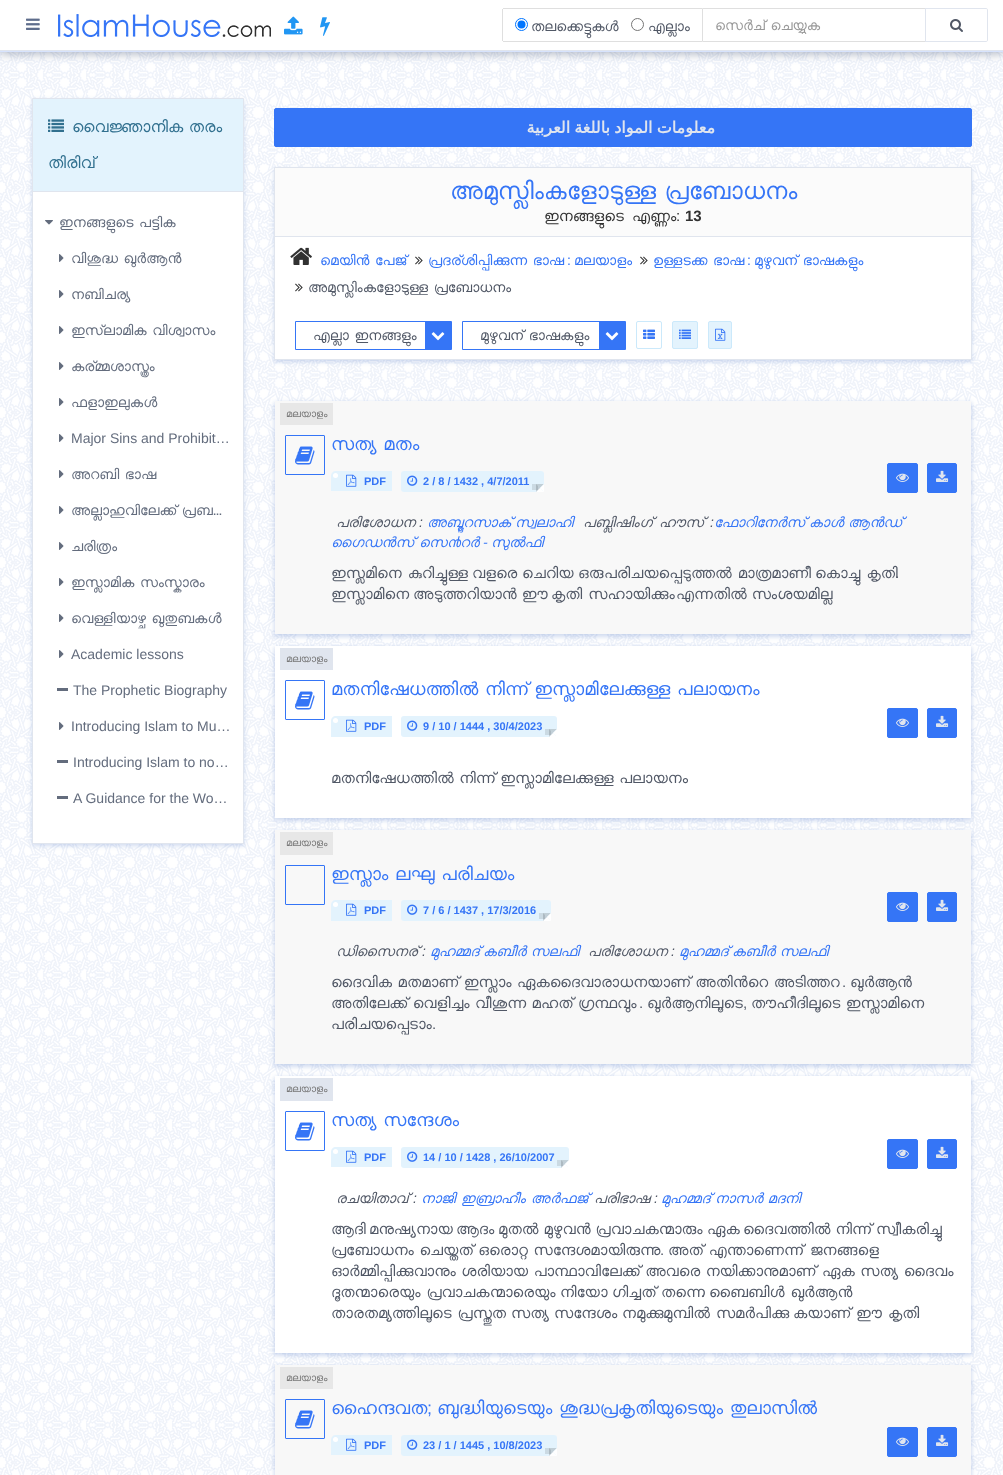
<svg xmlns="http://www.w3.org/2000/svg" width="1003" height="1475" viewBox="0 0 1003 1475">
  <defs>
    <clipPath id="clip1"><path d="M715 17h198v17H715z"/></clipPath>
    <clipPath id="clip2"><path d="M71 240h160v36H71z"/></clipPath>
  </defs>
  <rect width="100%" height="100%" fill="#fff"/>
  <image x="0" y="52" width="1003" height="1423" href="img/6.png"/>
  <path d="M0 3h1003v52H0z" fill="#2d3e5f52" filter="blur(4px)"/>
  <path d="M0 0h1003v50H0z" fill="#fff"/>
  <path d="M0 51h1003v1H0z" fill="#d7e3fd"/>
  <image x="26" y="18" width="14" height="12" href="img/1.png"/>
  <image x="58" y="14" width="213" height="23" href="img/2.png"/>
  <image x="284" y="16" width="19" height="19" href="img/3.png"/>
  <image x="320" y="17" width="10" height="19" href="img/4.png"/>
  <path d="M503 8h199v1H503z" fill="#dfdfdf"/>
  <path d="M503 41h199v1H503z" fill="#dfdfdf"/>
  <path d="M502 9h1v32H502z" fill="#dfdfdf"/>
  <circle cx="521.5" cy="24.5" r="6" fill="none" stroke="#0075ff"/>
  <circle cx="521.5" cy="24.5" r="4" fill="#0075ff"/>
  <circle cx="637.5" cy="24.5" r="6" fill="none" stroke="#767676"/>
  <path d="M702.5 8.5h223v33H702.5z" fill="none" stroke="#dfdfdf"/>
  <path d="M925.5 8.5H986C987 8.5 987.5 9 987.5 10V40C987.5 41 987 41.5 986 41.5H925.5Z" fill="none" stroke="#e0e5ee"/>
  <image x="950" y="19" width="13" height="13" href="img/5.png"/>
  <path d="M0 50h1003v1H0z" fill="#e0e5ee"/>
  <path d="M32 100h212v746H32z" fill="#1d4fb333" filter="blur(2px)"/>
  <path d="M33 192h210v651H33z" fill="#fff"/>
  <path d="M32.5 98.5h211v745H32.5z" fill="none" stroke="#e0e5ee"/>
  <path d="M33 99h210v92H33z" fill="#e3f3fd"/>
  <path d="M33 191h210v1H33z" fill="#e0e5ee"/>
  <image x="48" y="119" width="16" height="13" href="img/7.png"/>
  <image x="45" y="220" width="8" height="5" href="img/8.png"/>
  <image x="59" y="254" width="5" height="8" href="img/9.png"/>
  <image x="59" y="290" width="5" height="8" href="img/9.png"/>
  <image x="59" y="326" width="5" height="8" href="img/9.png"/>
  <image x="59" y="362" width="5" height="8" href="img/9.png"/>
  <image x="59" y="398" width="5" height="8" href="img/9.png"/>
  <image x="59" y="434" width="5" height="8" href="img/9.png"/>
  <image x="59" y="470" width="5" height="8" href="img/9.png"/>
  <image x="59" y="506" width="5" height="8" href="img/9.png"/>
  <image x="59" y="542" width="5" height="8" href="img/9.png"/>
  <image x="59" y="578" width="5" height="8" href="img/9.png"/>
  <image x="59" y="614" width="5" height="8" href="img/9.png"/>
  <image x="59" y="650" width="5" height="8" href="img/9.png"/>
  <path d="M57 688h11v3H57z" fill="#636c7d"/>
  <image x="59" y="722" width="5" height="8" href="img/9.png"/>
  <path d="M57 760h11v3H57z" fill="#636c7d"/>
  <path d="M57 796h11v3H57z" fill="#636c7d"/>
  <rect x="274.5" y="108.5" width="697" height="38" rx="1.5" fill="#3575f6" stroke="#3575f6"/>
  <path d="M274 169h698v193H274z" fill="#1d4fb333" filter="blur(2px)"/>
  <path d="M275 237h696v122H275z" fill="#fff"/>
  <path d="M274.5 167.5h697v192H274.5z" fill="none" stroke="#e0e5ee"/>
  <path d="M275 168h696v68H275z" fill="#fbfbfb"/>
  <path d="M275 236h696v1H275z" fill="#e0e5ee"/>
  <image x="290" y="247" width="22" height="18" href="img/10.png"/>
  <image x="415" y="256" width="8" height="9" href="img/11.png"/>
  <image x="640" y="256" width="8" height="9" href="img/11.png"/>
  <image x="295" y="283" width="8" height="9" href="img/11.png"/>
  <path d="M295.5 321.5h156v28H295.5z" fill="none" stroke="#3575f6"/>
  <path d="M425 322h26v27H425z" fill="#3575f6"/>
  <image x="431" y="332" width="14" height="9" href="img/12.png"/>
  <path d="M462.5 321.5h163v28H462.5z" fill="none" stroke="#3575f6"/>
  <path d="M599 322h26v27H599z" fill="#3575f6"/>
  <image x="605" y="332" width="14" height="9" href="img/12.png"/>
  <rect x="636.5" y="321.5" width="25" height="27" rx="1.5" fill="none" stroke="#cbe9fb"/>
  <image x="643" y="329" width="12" height="10" href="img/13.png"/>
  <rect x="672.5" y="321.5" width="25" height="27" rx="1.5" fill="#e3f3fd" stroke="#cbe9fb"/>
  <image x="679" y="329" width="12" height="10" href="img/14.png"/>
  <rect x="708.5" y="321.5" width="23" height="27" rx="1.5" fill="#e3f3fd" stroke="#cbe9fb"/>
  <image x="715" y="328" width="11" height="13" href="img/15.png"/>
  <path d="M274 402h698v235H274z" fill="#1d4fb333" filter="blur(2px)"/>
  <path d="M275 401h696v233H275z" fill="#f8f8f8"/>
  <path d="M280 403h53v22H280z" fill="#e7e7e7"/>
  <rect x="285.5" y="435.5" width="39" height="39" rx="0.5" fill="none" stroke="#3575f6"/>
  <image x="295" y="446" width="20" height="19" href="img/16.png"/>
  <path d="M336 471H392V491H331V476C331 473 333 471 336 471Z" fill="#e3f3fd"/>
  <circle cx="335.5" cy="475.5" r="2.5" fill="#fff"/>
  <image x="346" y="474" width="11" height="13" href="img/17.png"/>
  <rect x="401" y="471" width="143" height="21" rx="3" fill="#e3f3fd"/>
  <image x="407" y="475" width="11" height="11" href="img/18.png"/>
  <path d="M532 484h6v6H532z" fill="#0000001a" filter="blur(0.5px)"/>
  <path d="M536 484H544L540 488Z" fill="#c1cfd7"/>
  <path d="M544 484V492L540 488Z" fill="#fff"/>
  <path d="M544 492H536L540 488Z" fill="#fff"/>
  <path d="M536 492V484L540 488Z" fill="#00000026"/>
  <rect x="887.5" y="463.5" width="30" height="29" rx="1.5" fill="#3575f6" stroke="#3575f6"/>
  <image x="896" y="473" width="13" height="9" href="img/19.png"/>
  <rect x="927.5" y="463.5" width="29" height="29" rx="1.5" fill="#3575f6" stroke="#3575f6"/>
  <image x="936" y="470" width="13" height="12" href="img/20.png"/>
  <path d="M274 647h698v174H274z" fill="#1d4fb333" filter="blur(2px)"/>
  <path d="M275 646h696v172H275z" fill="#fff"/>
  <path d="M280 648h53v22H280z" fill="#e0e5ee"/>
  <rect x="285.5" y="680.5" width="39" height="39" rx="0.5" fill="none" stroke="#3575f6"/>
  <image x="295" y="691" width="20" height="19" href="img/21.png"/>
  <path d="M336 716H392V737H331V721C331 718 333 716 336 716Z" fill="#e3f3fd"/>
  <circle cx="335.5" cy="720.5" r="2.5" fill="#fff"/>
  <image x="346" y="719" width="11" height="13" href="img/17.png"/>
  <rect x="401" y="716" width="156" height="21" rx="3" fill="#e3f3fd"/>
  <image x="407" y="720" width="11" height="11" href="img/18.png"/>
  <path d="M545 729h6v6H545z" fill="#0000001a" filter="blur(0.5px)"/>
  <path d="M549 729H557L553 733Z" fill="#c1cfd7"/>
  <path d="M557 729V737L553 733Z" fill="#fff"/>
  <path d="M557 737H549L553 733Z" fill="#fff"/>
  <path d="M549 737V729L553 733Z" fill="#00000026"/>
  <rect x="887.5" y="708.5" width="30" height="29" rx="1.5" fill="#3575f6" stroke="#3575f6"/>
  <image x="896" y="718" width="13" height="9" href="img/19.png"/>
  <rect x="927.5" y="708.5" width="29" height="29" rx="1.5" fill="#3575f6" stroke="#3575f6"/>
  <image x="936" y="715" width="13" height="12" href="img/20.png"/>
  <path d="M274 831h698v236H274z" fill="#1d4fb333" filter="blur(2px)"/>
  <path d="M275 830h696v234H275z" fill="#f8f8f8"/>
  <path d="M280 832h53v23H280z" fill="#e7e7e7"/>
  <rect x="285.5" y="865.5" width="39" height="39" rx="0.5" fill="none" stroke="#3575f6"/>
  <path d="M336 900H392V921H331V905C331 902 333 900 336 900Z" fill="#e3f3fd"/>
  <circle cx="335.5" cy="904.5" r="2.5" fill="#fff"/>
  <image x="346" y="903" width="11" height="13" href="img/17.png"/>
  <rect x="401" y="900" width="150" height="21" rx="3" fill="#e3f3fd"/>
  <image x="407" y="904" width="11" height="11" href="img/18.png"/>
  <path d="M539 913h6v6H539z" fill="#0000001a" filter="blur(0.5px)"/>
  <path d="M543 913H551L547 917Z" fill="#c1cfd7"/>
  <path d="M551 913V921L547 917Z" fill="#fff"/>
  <path d="M551 921H543L547 917Z" fill="#fff"/>
  <path d="M543 921V913L547 917Z" fill="#00000026"/>
  <rect x="887.5" y="892.5" width="30" height="29" rx="1.5" fill="#3575f6" stroke="#3575f6"/>
  <image x="896" y="902" width="13" height="9" href="img/19.png"/>
  <rect x="927.5" y="892.5" width="29" height="29" rx="1.5" fill="#3575f6" stroke="#3575f6"/>
  <image x="936" y="899" width="13" height="12" href="img/20.png"/>
  <path d="M274 1077h698v279H274z" fill="#1d4fb333" filter="blur(2px)"/>
  <path d="M275 1076h696v277H275z" fill="#fff"/>
  <path d="M280 1078h53v23H280z" fill="#e0e5ee"/>
  <rect x="285.5" y="1111.5" width="39" height="39" rx="0.5" fill="none" stroke="#3575f6"/>
  <image x="295" y="1122" width="20" height="19" href="img/21.png"/>
  <path d="M336 1147H392V1167H331V1152C331 1149 333 1147 336 1147Z" fill="#e3f3fd"/>
  <circle cx="335.5" cy="1151.5" r="2.5" fill="#fff"/>
  <image x="346" y="1150" width="11" height="13" href="img/17.png"/>
  <rect x="401" y="1147" width="168" height="21" rx="3" fill="#e3f3fd"/>
  <image x="407" y="1151" width="11" height="11" href="img/18.png"/>
  <path d="M557 1160h6v6H557z" fill="#0000001a" filter="blur(0.5px)"/>
  <path d="M561 1160H569L565 1164Z" fill="#c1cfd7"/>
  <path d="M569 1160V1168L565 1164Z" fill="#fff"/>
  <path d="M569 1168H561L565 1164Z" fill="#fff"/>
  <path d="M561 1168V1160L565 1164Z" fill="#00000026"/>
  <rect x="887.5" y="1139.5" width="30" height="29" rx="1.5" fill="#3575f6" stroke="#3575f6"/>
  <image x="896" y="1149" width="13" height="9" href="img/19.png"/>
  <rect x="927.5" y="1139.5" width="29" height="29" rx="1.5" fill="#3575f6" stroke="#3575f6"/>
  <image x="936" y="1146" width="13" height="12" href="img/20.png"/>
  <path d="M274 1366h698v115H274z" fill="#1d4fb333" filter="blur(2px)"/>
  <path d="M275 1365h696v110H275z" fill="#f8f8f8"/>
  <path d="M280 1367h53v22H280z" fill="#e7e7e7"/>
  <rect x="285.5" y="1399.5" width="39" height="39" rx="0.5" fill="none" stroke="#3575f6"/>
  <image x="295" y="1410" width="20" height="19" href="img/16.png"/>
  <path d="M336 1435H392V1455H331V1440C331 1437 333 1435 336 1435Z" fill="#e3f3fd"/>
  <circle cx="335.5" cy="1439.5" r="2.5" fill="#fff"/>
  <image x="346" y="1438" width="11" height="13" href="img/17.png"/>
  <rect x="401" y="1435" width="156" height="21" rx="3" fill="#e3f3fd"/>
  <image x="407" y="1439" width="11" height="11" href="img/18.png"/>
  <path d="M545 1448h6v6H545z" fill="#0000001a" filter="blur(0.5px)"/>
  <path d="M549 1448H557L553 1452Z" fill="#c1cfd7"/>
  <path d="M557 1448V1456L553 1452Z" fill="#fff"/>
  <path d="M557 1456H549L553 1452Z" fill="#fff"/>
  <path d="M549 1456V1448L553 1452Z" fill="#00000026"/>
  <rect x="887.5" y="1427.5" width="30" height="29" rx="1.5" fill="#3575f6" stroke="#3575f6"/>
  <image x="896" y="1437" width="13" height="9" href="img/19.png"/>
  <rect x="927.5" y="1427.5" width="29" height="29" rx="1.5" fill="#3575f6" stroke="#3575f6"/>
  <image x="936" y="1434" width="13" height="12" href="img/20.png"/>
  <g font-family="FreeSans" font-size="14" fill="#515866">
    <text x="531" y="31">തലക്കെട്ടുകൾ</text>
    <text x="648" y="31">എല്ലാം</text>
  </g>
  <g clip-path="url(#clip1)">
    <text x="715" y="30" font-family="FreeSans" font-size="14" fill="#999">സെർച് ചെയ്യുക</text>
  </g>
  <g font-family="FreeSans" font-size="16" fill="#31708f">
    <text x="72" y="132" word-spacing="-1">വൈജ്ഞാനിക തരം</text>
    <text x="48" y="168">തിരിവ്</text>
  </g>
  <text x="59" y="227" font-family="FreeSans" font-size="14" fill="#636c7d">ഇനങ്ങളുടെ പട്ടിക</text>
  <g clip-path="url(#clip2)">
    <text x="71" y="263" font-family="FreeSans" font-size="14" fill="#636c7d">വിശുദ്ധ ഖുർആൻ</text>
  </g>
  <g font-family="FreeSans" font-size="14" fill="#636c7d">
    <text x="71" y="299">നബിചര്യ</text>
    <text x="71" y="335">ഇസ്</text>
    <text x="103" y="335">ലാമിക വിശ്വാസം</text>
    <text x="71" y="371">കര്മ്മശാസ്ത്രം</text>
    <text x="71" y="407">ഫളാഇലുകള്‍</text>
  </g>
  <text x="71" y="443" font-family="Liberation Sans" font-size="14" fill="#636c7d">Major Sins and Prohibit…</text>
  <g font-family="FreeSans" font-size="14" fill="#636c7d">
    <text x="71" y="479">അറബി ഭാഷ</text>
    <text x="71" y="515">അല്ലാഹുവിലേക്ക് പ്രബ…</text>
    <text x="71" y="551">ചരിത്രം</text>
    <text x="71" y="587">ഇസ്ലാമിക സംസ്കാരം</text>
    <text x="71" y="623">വെള്ളിയാഴ്ച ഖുതുബകള്‍</text>
  </g>
  <g font-family="Liberation Sans" font-size="14" fill="#636c7d">
    <text x="71" y="659">Academic lessons</text>
    <text x="73" y="695">The Prophetic Biography</text>
    <text x="71" y="731">Introducing Islam to Mu…</text>
    <text x="73" y="767">Introducing Islam to no…</text>
    <text x="73" y="803">A Guidance for the Wo…</text>
  </g>
  <text x="715" y="133" word-spacing="-1" font-family="DejaVu Sans" font-size="16" font-weight="bold" direction="rtl" fill="#e0e5ee">معلومات المواد باللغة العربية</text>
  <text x="450" y="199" word-spacing="-1" font-family="FreeSans" font-size="24" fill="#3575f6">അമുസ്ലിംകളോടുള്ള പ്രബോധനം</text>
  <g font-family="FreeSans" font-size="15" fill="#313131">
    <text x="544" y="221">ഇനങ്ങളുടെ</text>
    <text x="632" y="221">എണ്ണം</text>
  </g>
  <text x="676" y="221" font-family="Liberation Sans" font-size="15" fill="#313131">:</text>
  <text x="685" y="221" font-family="Liberation Sans" font-size="15" font-weight="bold" fill="#313131">13</text>
  <g font-family="FreeSans" font-size="14" fill="#3575f6">
    <text x="320" y="265">മെയിൻ പേജ്</text>
    <text x="428" y="265">പ്രദര്ശിപ്പിക്കുന്ന ഭാഷ</text>
  </g>
  <text x="567" y="265" font-family="Liberation Sans" font-size="14" fill="#3575f6">:</text>
  <g font-family="FreeSans" font-size="14" fill="#3575f6">
    <text x="574" y="265">മലയാളം</text>
    <text x="653" y="265">ഉള്ളടക്ക ഭാഷ</text>
  </g>
  <text x="747" y="265" font-family="Liberation Sans" font-size="14" fill="#3575f6">:</text>
  <text x="754" y="265" font-family="FreeSans" font-size="14" fill="#3575f6">മുഴുവന് ഭാഷകളും</text>
  <g font-family="FreeSans" font-size="14" fill="#515866">
    <text x="308" y="292">അമുസ്ലിംകളോടുള്ള പ്രബോധനം</text>
    <text x="313" y="340">എല്ലാ ഇനങ്ങളും</text>
    <text x="480" y="340">മുഴുവന് ഭാഷകളും</text>
  </g>
  <text x="286" y="417" font-family="FreeSans" font-size="10" fill="#777">മലയാളം</text>
  <text x="331" y="450" word-spacing="-0.5" font-family="FreeSans" font-size="18" fill="#3575f6">സത്യ മതം</text>
  <g font-family="Liberation Sans" font-size="11" font-weight="bold" fill="#3575f6">
    <text x="364" y="485">PDF</text>
    <text x="423" y="485">2 / 8 / 1432 , 4/7/2011</text>
  </g>
  <text x="336" y="527" font-family="FreeSans" font-size="14" font-style="italic" fill="#515866">പരിശോധന</text>
  <text x="419" y="527" font-family="Liberation Sans" font-size="14" font-style="italic" fill="#515866">:</text>
  <g font-family="FreeSans" font-size="14" font-style="italic" fill="#3575f6">
    <text x="427" y="527">അബ്ദുറസാക്</text>
    <text x="515" y="527">സ്വലാഹി</text>
  </g>
  <g font-family="FreeSans" font-size="14" font-style="italic" fill="#515866">
    <text x="583" y="527">പബ്ലിഷിംഗ്</text>
    <text x="659" y="527">ഹൗസ്</text>
  </g>
  <text x="710" y="527" font-family="Liberation Sans" font-size="14" font-style="italic" fill="#515866">:</text>
  <g font-family="FreeSans" font-size="14" font-style="italic" fill="#3575f6">
    <text x="714" y="527">ഫോറിനേര്‍സ്</text>
    <text x="809" y="527" word-spacing="-1">കാള്‍ ആന്‍ഡ്</text>
    <text x="331" y="547">ഗൈഡന്‍സ് സെ൯റര്‍</text>
  </g>
  <text x="483" y="547" font-family="Liberation Sans" font-size="14" font-style="italic" fill="#3575f6">-</text>
  <text x="491" y="547" font-family="FreeSans" font-size="14" font-style="italic" fill="#3575f6">സുല്‍ഫി</text>
  <g font-family="FreeSans" font-size="15" fill="#515866">
    <text x="331" y="578">ഇസ്ലമിനെ കുറിച്ചുള്ള</text>
    <text x="472" y="578">വളരെ</text>
    <text x="522" y="578">ചെറിയ</text>
    <text x="578" y="578">ഒരു</text>
    <text x="604" y="578">പരിചയപ്പെടുത്തല്‍ മാത്രമാണീ</text>
    <text x="815" y="578">കൊച്ചു കൃതി</text>
  </g>
  <text x="895" y="578" font-family="Liberation Sans" font-size="15" fill="#515866">.</text>
  <g font-family="FreeSans" font-size="15" fill="#515866">
    <text x="331" y="599">ഇസ്ലാമിനെ</text>
    <text x="413" y="599" word-spacing="-1">അടുത്തറിയാന്‍ ഈ</text>
    <text x="551" y="599">കൃതി സഹായിക്കും</text>
    <text x="676" y="599" word-spacing="-1">എന്നതില്‍ സംശയമില്ല</text>
  </g>
  <text x="286" y="662" font-family="FreeSans" font-size="10" fill="#777">മലയാളം</text>
  <text x="331" y="695" word-spacing="-0.5" font-family="FreeSans" font-size="18" fill="#3575f6">മതനിഷേധത്തിൽ നിന്ന് ഇസ്ലാമിലേക്കുള്ള പലായനം</text>
  <g font-family="Liberation Sans" font-size="11" font-weight="bold" fill="#3575f6">
    <text x="364" y="730">PDF</text>
    <text x="423" y="730">9 / 10 / 1444 , 30/4/2023</text>
  </g>
  <text x="331" y="783" word-spacing="-0.5" font-family="FreeSans" font-size="15" fill="#515866">മതനിഷേധത്തിൽ നിന്ന് ഇസ്ലാമിലേക്കുള്ള പലായനം</text>
  <text x="286" y="846" font-family="FreeSans" font-size="10" fill="#777">മലയാളം</text>
  <text x="331" y="880" word-spacing="-0.5" font-family="FreeSans" font-size="18" fill="#3575f6">ഇസ്ലാം ലഘു പരിചയം</text>
  <g font-family="Liberation Sans" font-size="11" font-weight="bold" fill="#3575f6">
    <text x="364" y="914">PDF</text>
    <text x="423" y="914">7 / 6 / 1437 , 17/3/2016</text>
  </g>
  <text x="336" y="956" font-family="FreeSans" font-size="14" font-style="italic" fill="#515866">ഡിസൈനര്</text>
  <text x="422" y="956" font-family="Liberation Sans" font-size="14" font-style="italic" fill="#515866">:</text>
  <g font-family="FreeSans" font-size="14" font-style="italic" fill="#3575f6">
    <text x="430" y="956">മുഹമ്മദ്</text>
    <text x="483" y="956" word-spacing="-1">കബീര്‍ സലഫി</text>
  </g>
  <text x="588" y="956" font-family="FreeSans" font-size="14" font-style="italic" fill="#515866">പരിശോധന</text>
  <text x="671" y="956" font-family="Liberation Sans" font-size="14" font-style="italic" fill="#515866">:</text>
  <g font-family="FreeSans" font-size="14" font-style="italic" fill="#3575f6">
    <text x="679" y="956">മുഹമ്മദ്</text>
    <text x="732" y="956" word-spacing="-1">കബീര്‍ സലഫി</text>
  </g>
  <text x="331" y="987" word-spacing="-0.5" font-family="FreeSans" font-size="15" fill="#515866">ദൈവിക മതമാണ് ഇസ്ലാം ഏകദൈവാരാധനയാണ് അതിന്‍റെ അടിത്തറ</text>
  <text x="842" y="987" font-family="Liberation Sans" font-size="15" fill="#515866">.</text>
  <g font-family="FreeSans" font-size="15" fill="#515866">
    <text x="850" y="987">ഖുര്‍ആന്‍</text>
    <text x="331" y="1008" word-spacing="-0.5">അതിലേക്ക് വെളിച്ചം വീശുന്ന മഹത് ഗ്രന്ഥവും</text>
  </g>
  <text x="639" y="1008" font-family="Liberation Sans" font-size="15" fill="#515866">.</text>
  <text x="647" y="1008" font-family="FreeSans" font-size="15" fill="#515866">ഖുര്‍ആനിലൂടെ</text>
  <text x="743" y="1008" font-family="Liberation Sans" font-size="15" fill="#515866">,</text>
  <g font-family="FreeSans" font-size="15" fill="#515866">
    <text x="751" y="1008" word-spacing="-0.5">തൗഹീദിലൂടെ ഇസ്ലാമിനെ</text>
    <text x="331" y="1029">പരിചയപ്പെടാം</text>
  </g>
  <text x="432" y="1029" font-family="Liberation Sans" font-size="15" fill="#515866">.</text>
  <text x="286" y="1092" font-family="FreeSans" font-size="10" fill="#777">മലയാളം</text>
  <text x="331" y="1126" word-spacing="-0.5" font-family="FreeSans" font-size="18" fill="#3575f6">സത്യ സന്ദേശം</text>
  <g font-family="Liberation Sans" font-size="11" font-weight="bold" fill="#3575f6">
    <text x="364" y="1161">PDF</text>
    <text x="423" y="1161">14 / 10 / 1428 , 26/10/2007</text>
  </g>
  <text x="336" y="1203" font-family="FreeSans" font-size="14" font-style="italic" fill="#515866">രചയിതാവ്</text>
  <text x="413" y="1203" font-family="Liberation Sans" font-size="14" font-style="italic" fill="#515866">:</text>
  <text x="421" y="1203" font-family="FreeSans" font-size="14" font-style="italic" fill="#3575f6">നാജി ഇബ്രാഹീം അര്‍ഫജ്</text>
  <text x="594" y="1203" font-family="FreeSans" font-size="14" font-style="italic" fill="#515866">പരിഭാഷ</text>
  <text x="654" y="1203" font-family="Liberation Sans" font-size="14" font-style="italic" fill="#515866">:</text>
  <g font-family="FreeSans" font-size="14" font-style="italic" fill="#3575f6">
    <text x="661" y="1203">മുഹമ്മദ്</text>
    <text x="715" y="1203" word-spacing="-1">നാസര്‍ മദനി</text>
  </g>
  <g font-family="FreeSans" font-size="15" fill="#515866">
    <text x="331" y="1234">ആദി</text>
    <text x="369" y="1234">മനുഷ്യനായ</text>
    <text x="456" y="1234">ആദം</text>
    <text x="498" y="1234" word-spacing="-1">മുതല്‍ മുഴുവന്‍ പ്രവാചകന്മാരും</text>
    <text x="707" y="1234">ഏക</text>
    <text x="743" y="1234" word-spacing="-1">ദൈവത്തില്‍ നിന്ന്</text>
    <text x="876" y="1234">സ്വീകരിച്ചു</text>
    <text x="331" y="1255" word-spacing="-0.5">പ്രബോധനം ചെയ്തത് ഒരൊറ്റ സന്ദേശമായിരുന്നു</text>
  </g>
  <text x="660" y="1255" font-family="Liberation Sans" font-size="15" fill="#515866">.</text>
  <g font-family="FreeSans" font-size="15" fill="#515866">
    <text x="668" y="1255">അത് എന്താണെന്ന്</text>
    <text x="810" y="1255">ജനങ്ങളെ</text>
    <text x="331" y="1276" word-spacing="-0.5">ഓര്‍മ്മിപ്പിക്കുവാനും ശരിയായ പാന്ഥാവിലേക്ക് അവരെ നയിക്കാനുമാണ്</text>
    <text x="822" y="1276" word-spacing="-0.5">ഏക സത്യ ദൈവം</text>
    <text x="331" y="1297">ദൂതന്മാരെയും പ്രവാചകന്മാരെയും</text>
    <text x="560" y="1297">നിയോ</text>
    <text x="612" y="1297">ഗിച്ചത്</text>
    <text x="661" y="1297">തന്നെ</text>
  </g>
  <text x="701" y="1297" font-family="Liberation Sans" font-size="15" fill="#515866">.</text>
  <g font-family="FreeSans" font-size="15" fill="#515866">
    <text x="709" y="1297">ബൈബിള്‍ ഖുര്‍ആന്‍</text>
    <text x="331" y="1318">താരതമ്യത്തിലൂടെ പ്രസ്തുത</text>
    <text x="511" y="1318">സത്യ</text>
    <text x="554" y="1318">സന്ദേശം</text>
    <text x="622" y="1318">നമുക്കു</text>
    <text x="663" y="1318">മുമ്പില്‍ സമര്‍പിക്കു</text>
    <text x="793" y="1318">കയാണ് ഈ</text>
    <text x="888" y="1318">കൃതി</text>
  </g>
  <text x="916" y="1318" font-family="Liberation Sans" font-size="15" fill="#515866">.</text>
  <text x="286" y="1381" font-family="FreeSans" font-size="10" fill="#777">മലയാളം</text>
  <text x="331" y="1414" font-family="FreeSans" font-size="18" fill="#3575f6">ഹൈന്ദവത</text>
  <text x="427" y="1414" font-family="Liberation Sans" font-size="18" fill="#3575f6">;</text>
  <text x="437" y="1414" word-spacing="-0.5" font-family="FreeSans" font-size="18" fill="#3575f6">ബുദ്ധിയുടെയും ശുദ്ധപ്രകൃതിയുടെയും തുലാസിൽ</text>
  <g font-family="Liberation Sans" font-size="11" font-weight="bold" fill="#3575f6">
    <text x="364" y="1449">PDF</text>
    <text x="423" y="1449">23 / 1 / 1445 , 10/8/2023</text>
  </g>
</svg>
